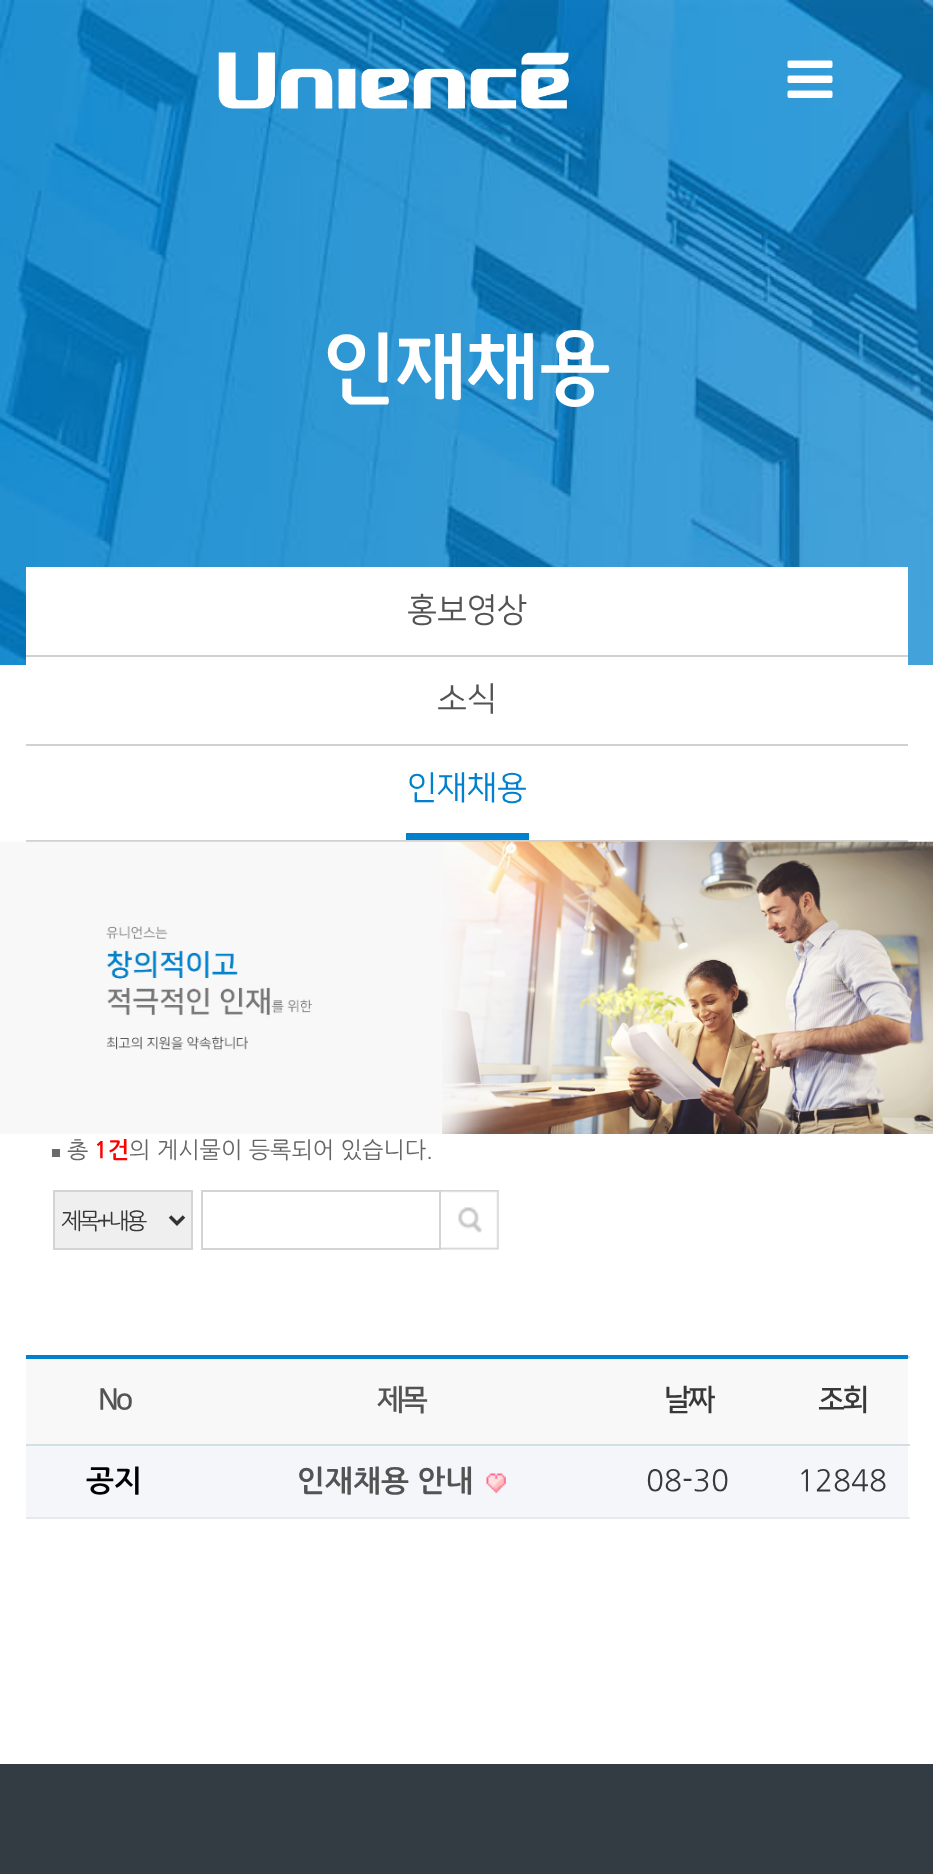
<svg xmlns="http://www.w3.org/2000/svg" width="933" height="1874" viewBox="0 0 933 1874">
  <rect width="100%" height="100%" fill="#fff"/>
  <image x="0" y="0" width="933" height="665" href="img/3.png"/>
  <image x="218" y="52" width="351" height="57" href="img/1.png"/>
  <image x="787" y="60" width="46" height="38" href="img/2.png"/>
  <path d="M26 567h882v98H26z" fill="#fff"/>
  <path d="M26 655h882v2H26z" fill="#d1d1d1"/>
  <path d="M26 744h882v2H26z" fill="#d1d1d1"/>
  <path d="M26 840h882v2H26z" fill="#d1d1d1"/>
  <path d="M406 833h123v7H406z" fill="#0180cd"/>
  <image x="0" y="841" width="933" height="293" href="img/4.png"/>
  <path d="M52 1149h8v8H52z" fill="#6b6b6b"/>
  <path d="M54 1191h138v58H54z" fill="#efefef" stroke="#d4d4d4" stroke-width="2"/>
  <path d="M170 1216.5L177 1223.5L184 1216.5" fill="none" stroke="#333" stroke-width="3.5"/>
  <path d="M202 1191h238v58H202z" fill="none" stroke="#d4d4d4" stroke-width="2"/>
  <image x="441" y="1190" width="58" height="60" href="img/5.png"/>
  <path d="M26 1355h882v4H26z" fill="#0180cd"/>
  <path d="M26 1359h882v85H26z" fill="#f8f8f8"/>
  <path d="M908 1356h2v2H908z" fill="#d1dee2"/>
  <path d="M26 1444h884v2H26z" fill="#d1dee2"/>
  <path d="M26 1446h882v71H26z" fill="#f5f6fa"/>
  <image x="486" y="1473" width="20" height="21" href="img/6.png"/>
  <path d="M26 1517h884v2H26z" fill="#e9e9e9"/>
  <path d="M0 1764h933v110H0z" fill="#333c43"/>
  <text x="325" y="392" font-family="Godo" font-size="79" fill="#fff">인재채용</text>
  <g font-family="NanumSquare" font-size="33" fill="#535353">
    <text x="407" y="620">홍보영상</text>
    <text x="437" y="709">소식</text>
  </g>
  <text x="407" y="798" font-family="NanumSquare" font-size="33" fill="#0180cd">인재채용</text>
  <text x="67" y="1157" font-family="NanumGothic" font-size="22.75" fill="#666">총</text>
  <text x="94" y="1157" font-family="NanumGothic" font-size="22.75" font-weight="bold" fill="#f00">1건</text>
  <text x="129" y="1157" font-family="NanumGothic" font-size="22.75" fill="#666">의 게시물이 등록되어 있습니다.</text>
  <text x="61" y="1228" font-family="NanumGothic" font-size="22.75" letter-spacing="-3.5" fill="#383838">제목+내용</text>
  <g font-family="NanumSquare" font-size="29.75" font-weight="bold" letter-spacing="-3" fill="#535353">
    <text x="98" y="1409">No</text>
    <text x="377" y="1409">제목</text>
  </g>
  <g font-family="NanumSquare" font-size="29.75" font-weight="bold" letter-spacing="-3" fill="#383838">
    <text x="664" y="1409">날짜</text>
    <text x="818" y="1409">조회</text>
  </g>
  <text x="86" y="1490" font-family="NanumGothic" font-size="29.75" font-weight="bold" fill="#000">공지</text>
  <text x="297" y="1490" font-family="NanumGothic" font-size="29.75" font-weight="bold" fill="#535353">인재채용 안내</text>
  <g font-family="NanumGothic" font-size="29.75" fill="#383838">
    <text x="646" y="1490">08-30</text>
    <text x="797" y="1490">12848</text>
  </g>
</svg>
